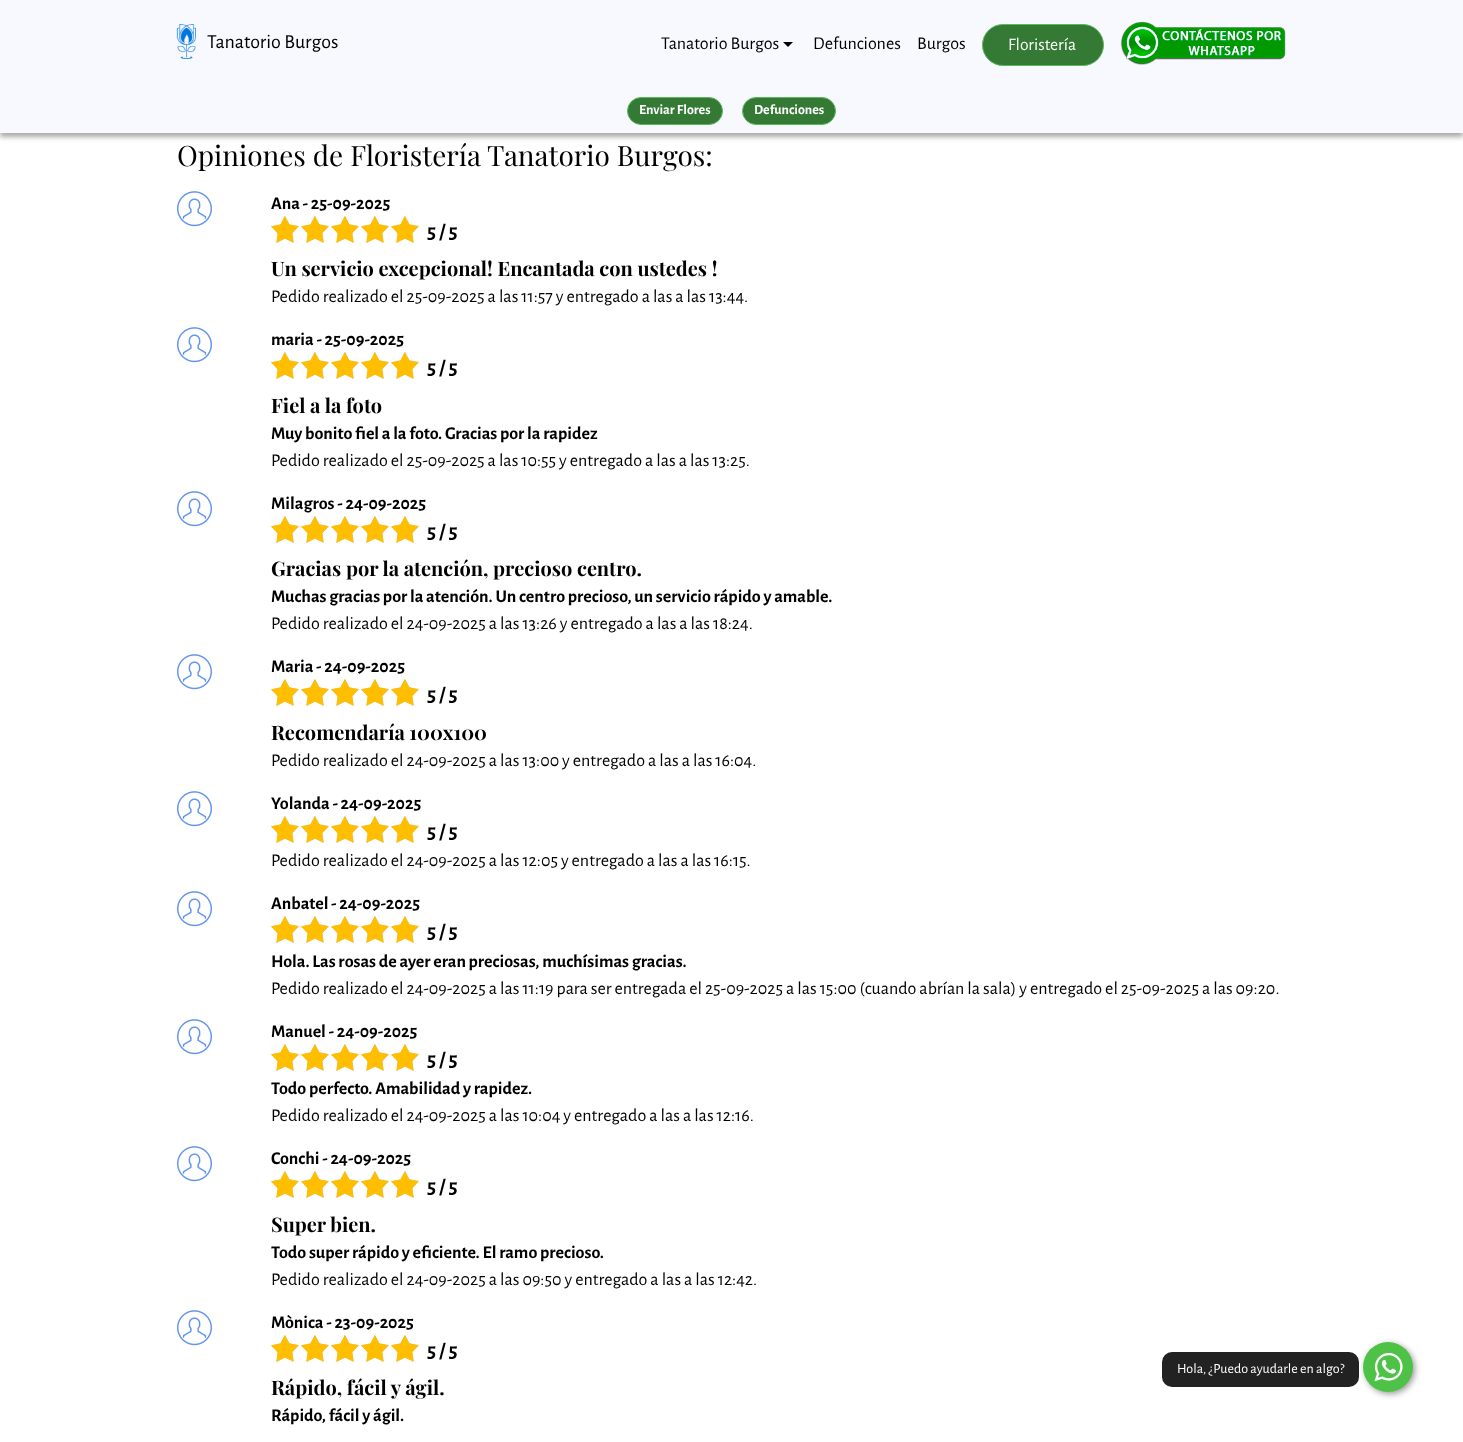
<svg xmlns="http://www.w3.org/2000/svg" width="1463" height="1442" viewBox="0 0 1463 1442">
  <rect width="100%" height="100%" fill="#fff"/>
  <path d="M0 87h1463v50H0z" fill="#aaa" filter="blur(2.5px)"/>
  <path d="M0 0h1463v133H0z" fill="#f8f8ff"/>
  <image x="176" y="24" width="20" height="35" href="img/1.png"/>
  <path d="M783 42H793L788 47Z" fill="#000"/>
  <rect x="982.5" y="24.5" width="121" height="41" rx="20.5" fill="#347934" stroke="#5cb85c"/>
  <image x="1120" y="21" width="166" height="44" href="img/2.png"/>
  <rect x="627.5" y="97.5" width="95" height="27" rx="13.5" fill="#347934" stroke="#5cb85c"/>
  <rect x="742.5" y="97.5" width="93" height="27" rx="13.5" fill="#347934" stroke="#5cb85c"/>
  <image x="177" y="191" width="35" height="36" href="img/3.png"/>
  <image x="271" y="216" width="148" height="27" href="img/4.png"/>
  <image x="271" y="216" width="148" height="27" href="img/5.png"/>
  <image x="177" y="327" width="35" height="36" href="img/3.png"/>
  <image x="271" y="352" width="148" height="27" href="img/4.png"/>
  <image x="271" y="352" width="148" height="27" href="img/5.png"/>
  <image x="177" y="491" width="35" height="36" href="img/3.png"/>
  <image x="271" y="516" width="148" height="27" href="img/4.png"/>
  <image x="271" y="516" width="148" height="27" href="img/5.png"/>
  <image x="177" y="654" width="35" height="36" href="img/3.png"/>
  <image x="271" y="679" width="148" height="27" href="img/4.png"/>
  <image x="271" y="679" width="148" height="27" href="img/5.png"/>
  <image x="177" y="791" width="35" height="36" href="img/3.png"/>
  <image x="271" y="816" width="148" height="27" href="img/4.png"/>
  <image x="271" y="816" width="148" height="27" href="img/5.png"/>
  <image x="177" y="891" width="35" height="36" href="img/3.png"/>
  <image x="271" y="916" width="148" height="27" href="img/4.png"/>
  <image x="271" y="916" width="148" height="27" href="img/5.png"/>
  <image x="177" y="1019" width="35" height="36" href="img/3.png"/>
  <image x="271" y="1044" width="148" height="27" href="img/4.png"/>
  <image x="271" y="1044" width="148" height="27" href="img/5.png"/>
  <image x="177" y="1146" width="35" height="36" href="img/3.png"/>
  <image x="271" y="1171" width="148" height="27" href="img/4.png"/>
  <image x="271" y="1171" width="148" height="27" href="img/5.png"/>
  <image x="177" y="1310" width="35" height="36" href="img/3.png"/>
  <image x="271" y="1335" width="148" height="27" href="img/4.png"/>
  <image x="271" y="1335" width="148" height="27" href="img/5.png"/>
  <rect x="1162" y="1352" width="197" height="35" rx="10" fill="#222"/>
  <rect x="1365" y="1344" width="50" height="50" rx="25" fill="#00000066" filter="blur(3px)"/>
  <circle cx="1388" cy="1367" r="25" fill="#4dc247"/>
  <image x="1374" y="1352" width="29" height="30" href="img/6.png"/>
  <text x="207" y="48" font-family="Alegreya Sans" font-size="20" fill="#000">Tanatorio Burgos</text>
  <g font-family="Alegreya Sans" font-size="18" fill="#000">
    <text x="661" y="49">Tanatorio Burgos</text>
    <text x="813" y="49">Defunciones</text>
    <text x="917" y="49">Burgos</text>
  </g>
  <text x="1008" y="50" font-family="Alegreya Sans" font-size="17.5" fill="#fff">Floristería</text>
  <g font-family="Alegreya Sans" font-size="14" font-weight="bold" fill="#fff">
    <text x="639" y="114">Enviar Flores</text>
    <text x="754" y="114">Defunciones</text>
  </g>
  <text x="177" y="166" font-family="Playfair Display" font-size="28" fill="#000">Opiniones de Floristería Tanatorio Burgos:</text>
  <text x="271" y="209" font-family="Alegreya Sans" font-size="18" font-weight="bold" fill="#000">Ana - 25-09-2025</text>
  <text x="427" y="238" font-family="Alegreya Sans" font-size="21" font-weight="bold" fill="#000">5 / 5</text>
  <text x="271" y="276" font-family="Playfair Display" font-size="20" font-weight="bold" fill="#000">Un servicio excepcional! Encantada con ustedes !</text>
  <text x="271" y="302" font-family="Alegreya Sans" font-size="18" fill="#000">Pedido realizado el 25-09-2025 a las 11:57 y entregado a las a las 13:44.</text>
  <text x="271" y="345" font-family="Alegreya Sans" font-size="18" font-weight="bold" fill="#000">maria - 25-09-2025</text>
  <text x="427" y="374" font-family="Alegreya Sans" font-size="21" font-weight="bold" fill="#000">5 / 5</text>
  <text x="271" y="413" font-family="Playfair Display" font-size="20" font-weight="bold" fill="#000">Fiel a la foto</text>
  <text x="271" y="439" font-family="Alegreya Sans" font-size="18" font-weight="bold" fill="#000">Muy bonito fiel a la foto. Gracias por la rapidez</text>
  <text x="271" y="466" font-family="Alegreya Sans" font-size="18" fill="#000">Pedido realizado el 25-09-2025 a las 10:55 y entregado a las a las 13:25.</text>
  <text x="271" y="509" font-family="Alegreya Sans" font-size="18" font-weight="bold" fill="#000">Milagros - 24-09-2025</text>
  <text x="427" y="538" font-family="Alegreya Sans" font-size="21" font-weight="bold" fill="#000">5 / 5</text>
  <text x="271" y="576" font-family="Playfair Display" font-size="20" font-weight="bold" fill="#000">Gracias por la atención, precioso centro.</text>
  <text x="271" y="602" font-family="Alegreya Sans" font-size="18" font-weight="bold" fill="#000">Muchas gracias por la atención. Un centro precioso, un servicio rápido y amable.</text>
  <text x="271" y="629" font-family="Alegreya Sans" font-size="18" fill="#000">Pedido realizado el 24-09-2025 a las 13:26 y entregado a las a las 18:24.</text>
  <text x="271" y="672" font-family="Alegreya Sans" font-size="18" font-weight="bold" fill="#000">Maria - 24-09-2025</text>
  <text x="427" y="701" font-family="Alegreya Sans" font-size="21" font-weight="bold" fill="#000">5 / 5</text>
  <text x="271" y="740" font-family="Playfair Display" font-size="20" font-weight="bold" fill="#000">Recomendaría 100x100</text>
  <text x="271" y="766" font-family="Alegreya Sans" font-size="18" fill="#000">Pedido realizado el 24-09-2025 a las 13:00 y entregado a las a las 16:04.</text>
  <text x="271" y="809" font-family="Alegreya Sans" font-size="18" font-weight="bold" fill="#000">Yolanda - 24-09-2025</text>
  <text x="427" y="838" font-family="Alegreya Sans" font-size="21" font-weight="bold" fill="#000">5 / 5</text>
  <text x="271" y="866" font-family="Alegreya Sans" font-size="18" fill="#000">Pedido realizado el 24-09-2025 a las 12:05 y entregado a las a las 16:15.</text>
  <text x="271" y="909" font-family="Alegreya Sans" font-size="18" font-weight="bold" fill="#000">Anbatel - 24-09-2025</text>
  <text x="427" y="938" font-family="Alegreya Sans" font-size="21" font-weight="bold" fill="#000">5 / 5</text>
  <text x="271" y="967" font-family="Alegreya Sans" font-size="18" font-weight="bold" fill="#000">Hola. Las rosas de ayer eran preciosas, muchísimas gracias.</text>
  <text x="271" y="994" font-family="Alegreya Sans" font-size="18" fill="#000">Pedido realizado el 24-09-2025 a las 11:19 para ser entregada el 25-09-2025 a las 15:00 (cuando abrían la sala) y entregado el 25-09-2025 a las 09:20.</text>
  <text x="271" y="1037" font-family="Alegreya Sans" font-size="18" font-weight="bold" fill="#000">Manuel - 24-09-2025</text>
  <text x="427" y="1066" font-family="Alegreya Sans" font-size="21" font-weight="bold" fill="#000">5 / 5</text>
  <text x="271" y="1094" font-family="Alegreya Sans" font-size="18" font-weight="bold" fill="#000">Todo perfecto. Amabilidad y rapidez.</text>
  <text x="271" y="1121" font-family="Alegreya Sans" font-size="18" fill="#000">Pedido realizado el 24-09-2025 a las 10:04 y entregado a las a las 12:16.</text>
  <text x="271" y="1164" font-family="Alegreya Sans" font-size="18" font-weight="bold" fill="#000">Conchi - 24-09-2025</text>
  <text x="427" y="1193" font-family="Alegreya Sans" font-size="21" font-weight="bold" fill="#000">5 / 5</text>
  <text x="271" y="1232" font-family="Playfair Display" font-size="20" font-weight="bold" fill="#000">Super bien.</text>
  <text x="271" y="1258" font-family="Alegreya Sans" font-size="18" font-weight="bold" fill="#000">Todo super rápido y eficiente. El ramo precioso.</text>
  <text x="271" y="1285" font-family="Alegreya Sans" font-size="18" fill="#000">Pedido realizado el 24-09-2025 a las 09:50 y entregado a las a las 12:42.</text>
  <text x="271" y="1328" font-family="Alegreya Sans" font-size="18" font-weight="bold" fill="#000">Mònica - 23-09-2025</text>
  <text x="427" y="1357" font-family="Alegreya Sans" font-size="21" font-weight="bold" fill="#000">5 / 5</text>
  <text x="271" y="1395" font-family="Playfair Display" font-size="20" font-weight="bold" fill="#000">Rápido, fácil y ágil.</text>
  <text x="271" y="1421" font-family="Alegreya Sans" font-size="18" font-weight="bold" fill="#000">Rápido, fácil y ágil.</text>
  <text x="1177" y="1373" font-family="Alegreya Sans" font-size="14" fill="#fff">Hola, ¿Puedo ayudarle en algo?</text>
</svg>
